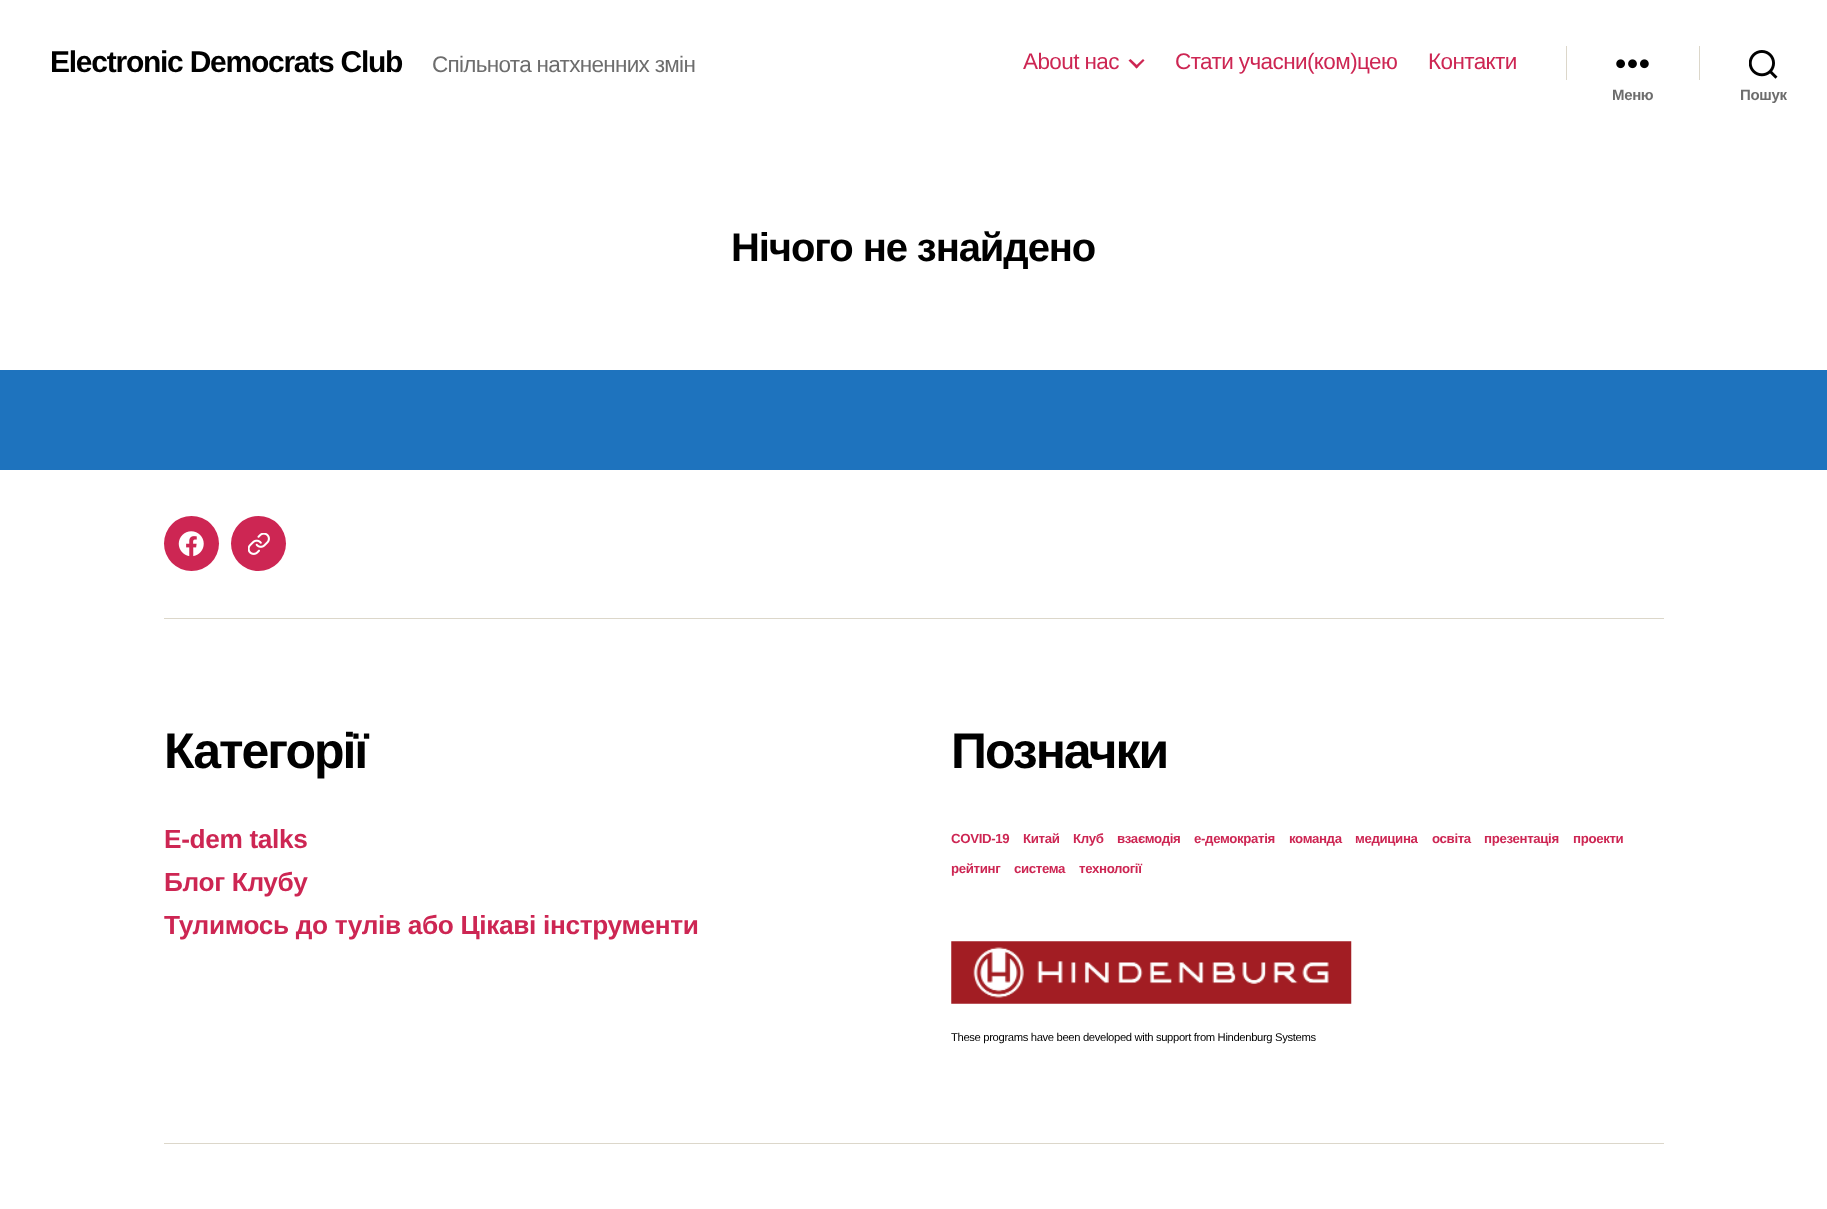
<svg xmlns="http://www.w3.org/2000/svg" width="1827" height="1209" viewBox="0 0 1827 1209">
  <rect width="100%" height="100%" fill="#1e73be"/>
  <path d="M0 0h1827v370H0z" fill="#fff"/>
  <path d="M1128.5 60.5L1130.5 59L1138.5 66.5L1136.5 68.5Z" fill="#cd2653"/>
  <path d="M1135 66.5L1143 59L1144.5 60.5L1136.5 68.5Z" fill="#cd2653"/>
  <path d="M1566 46h1v34H1566z" fill="#dcd7ca"/>
  <image x="1616" y="59" width="33" height="10" href="img/1.png"/>
  <path d="M1699 46h1v34H1699z" fill="#dcd7ca"/>
  <image x="1749" y="50" width="29" height="29" href="img/2.png"/>
  <path d="M0 470h1827v739H0z" fill="#fff"/>
  <path d="M164 618h1500v1H164z" fill="#dcd7ca"/>
  <circle cx="191.5" cy="543.5" r="27.5" fill="#cd2653"/>
  <image x="178" y="531" width="26" height="26" href="img/3.png"/>
  <circle cx="258.5" cy="543.5" r="27.5" fill="#cd2653"/>
  <image x="248" y="533" width="22" height="22" href="img/4.png"/>
  <path d="M164 1143h1500v1H164z" fill="#dcd7ca"/>
  <image x="951" y="941" width="401" height="63" href="img/5.png"/>
  <text x="50" y="72" font-family="Liberation Sans" font-size="30" font-weight="bold" letter-spacing="-1.25" fill="#000">Electronic Democrats Club</text>
  <text x="432" y="72" font-family="Liberation Sans" font-size="22.5" letter-spacing="-0.7" fill="#6d6d6d">Спільнота натхненних змін</text>
  <g font-family="Liberation Sans" font-size="22.5" letter-spacing="-0.6" fill="#cd2653">
    <text x="1023" y="69">About нас</text>
    <text x="1175" y="69">Стати учасни(ком)цею</text>
    <text x="1428" y="69">Контакти</text>
  </g>
  <g font-family="Liberation Sans" font-size="15" font-weight="bold" letter-spacing="-0.35" fill="#6d6d6d">
    <text x="1612" y="100">Меню</text>
    <text x="1740" y="100">Пошук</text>
  </g>
  <text x="731" y="261" font-family="Liberation Sans" font-size="40" font-weight="bold" letter-spacing="-1.1" fill="#000">Нічого не знайдено</text>
  <text x="164" y="768" font-family="Liberation Sans" font-size="50" font-weight="bold" letter-spacing="-2" fill="#000">Категорії</text>
  <g font-family="Liberation Sans" font-size="26.25" font-weight="bold" letter-spacing="-0.35" fill="#cd2653">
    <text x="164" y="848">E-dem talks</text>
    <text x="164" y="891">Блог Клубу</text>
    <text x="164" y="934">Тулимось до тулів або Цікаві інструменти</text>
  </g>
  <text x="951" y="768" font-family="Liberation Sans" font-size="50" font-weight="bold" letter-spacing="-2" fill="#000">Позначки</text>
  <g font-family="Liberation Sans" font-size="13.25" font-weight="bold" letter-spacing="-0.35" fill="#cd2653">
    <text x="951" y="843">COVID-19</text>
    <text x="1023" y="843">Китай</text>
    <text x="1073" y="843">Клуб</text>
    <text x="1117" y="843">взаємодія</text>
    <text x="1194" y="843">е-демократія</text>
    <text x="1289" y="843">команда</text>
    <text x="1355" y="843">медицина</text>
    <text x="1432" y="843">освіта</text>
    <text x="1484" y="843">презентація</text>
    <text x="1573" y="843">проекти</text>
    <text x="951" y="873">рейтинг</text>
    <text x="1014" y="873">система</text>
    <text x="1079" y="873">технології</text>
  </g>
  <text x="951" y="1041" font-family="Liberation Sans" font-size="11.25" letter-spacing="-0.35" fill="#000">These programs have been developed with support from Hindenburg Systems</text>
</svg>
